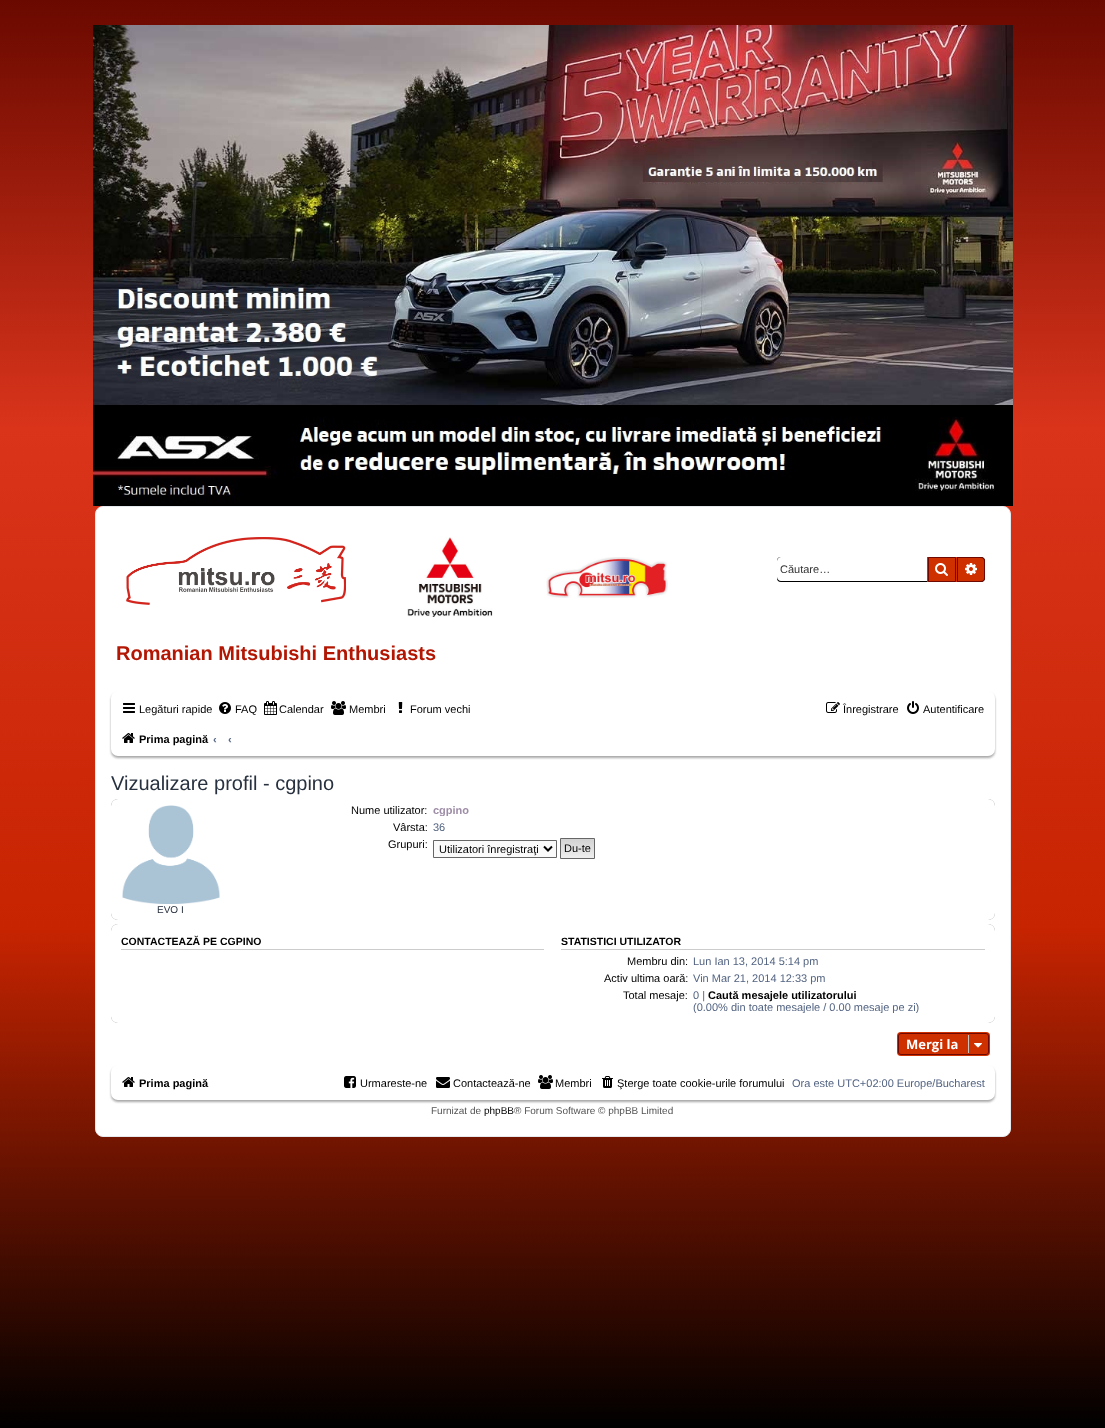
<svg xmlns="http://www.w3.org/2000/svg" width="1105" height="1428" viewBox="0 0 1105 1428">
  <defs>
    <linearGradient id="g1" gradientUnits="userSpaceOnUse" x1="552" y1="0" x2="553" y2="1428"><stop offset="0" stop-color="#6a0900"/><stop offset="0.3" stop-color="#da341b"/><stop offset="0.65" stop-color="#c72401"/><stop offset="1" stop-color="#000"/></linearGradient>
    <linearGradient id="g2" gradientUnits="userSpaceOnUse" x1="578" y1="839" x2="578" y2="858"><stop offset="0" stop-color="#d2d2d2"/><stop offset="1" stop-color="#efefef"/></linearGradient>
    <clipPath id="clip1"><path d="M428 804h454v12H428z"/></clipPath>
    <clipPath id="clip2"><path d="M688 989h280v24H688z"/></clipPath>
  </defs>
  <rect width="100%" height="100%" fill="#fff"/>
  <path d="M0 1162h1105v266H0z" fill="url(#g1)"/>
  <path d="M0 0h1105v1162H0z" fill="url(#g1)"/>
  <image x="93" y="25" width="920" height="481" href="img/1.png"/>
  <rect x="95.5" y="506.5" width="915" height="630" rx="7.5" fill="#fff" stroke="#e6e9ed"/>
  <rect x="777" y="557" width="208" height="25" rx="4" fill="#000" filter="blur(0.5px)"/>
  <path d="M781 557H927V581H781C779 581 777 579 777 577V561C777 559 779 557 781 557Z" fill="#fff"/>
  <path d="M927 557h30v25H927z" fill="#cf3000"/>
  <path d="M928.5 557.5h27v24H928.5z" fill="none" stroke="#6e0800"/>
  <image x="935" y="563" width="13" height="13" href="img/2.png"/>
  <path d="M957.5 557.5H981C983 557.5 984.5 559 984.5 561V578C984.5 580 983 581.5 981 581.5H957.5Z" fill="#cf3000" stroke="#6e0800"/>
  <image x="965" y="563" width="12" height="12" href="img/3.png"/>
  <image x="126" y="537" width="220" height="68" href="img/4.png"/>
  <image x="407" y="537" width="86" height="80" href="img/5.png"/>
  <image x="546" y="557" width="122" height="41" href="img/6.png"/>
  <rect x="111" y="693" width="884" height="65" rx="7" fill="#a8a8a8" filter="blur(1px)"/>
  <rect x="111" y="691" width="884" height="65" rx="7" fill="#fff"/>
  <image x="123" y="703" width="12" height="10" href="img/7.png"/>
  <image x="219" y="702" width="12" height="12" href="img/8.png"/>
  <image x="264" y="701" width="13" height="14" href="img/9.png"/>
  <image x="331" y="701" width="15" height="14" href="img/10.png"/>
  <image x="398" y="702" width="5" height="11" href="img/11.png"/>
  <image x="826" y="702" width="14" height="11" href="img/12.png"/>
  <image x="907" y="701" width="12" height="13" href="img/13.png"/>
  <image x="122" y="733" width="13" height="10" href="img/14.png"/>
  <rect x="111" y="799" width="884" height="121" rx="7" fill="#808080" filter="blur(0.5px)"/>
  <rect x="111" y="799" width="884" height="121" rx="7" fill="#fff"/>
  <path d="M433.5 840.5h123v17H433.5z" fill="#fafafa" stroke="#666"/>
  <path d="M544 846.5L548 850.5L552 846.5" fill="none" stroke="#000" stroke-width="2"/>
  <path d="M561 839h33v19H561z" fill="url(#g2)"/>
  <path d="M560.5 838.5h34v20H560.5z" fill="none" stroke="#666"/>
  <image x="122" y="805" width="98" height="99" href="img/15.png"/>
  <rect x="111" y="924" width="884" height="99" rx="7" fill="#808080" filter="blur(0.5px)"/>
  <rect x="111" y="924" width="884" height="99" rx="7" fill="#fff"/>
  <path d="M121 949h423v1H121z" fill="#ccc"/>
  <path d="M561 949h424v1H561z" fill="#ccc"/>
  <rect x="897" y="1032" width="93" height="24" rx="4" fill="#cf3000"/>
  <rect x="898.5" y="1033.5" width="90" height="21" rx="2.5" fill="none" stroke="#6e0800"/>
  <path d="M968 1035h1v18H968z" fill="#c7c3bf"/>
  <image x="974" y="1043" width="8" height="5" href="img/16.png"/>
  <rect x="111" y="1067" width="884" height="35" rx="7" fill="#a8a8a8" filter="blur(1px)"/>
  <rect x="111" y="1065" width="884" height="35" rx="7" fill="#fff"/>
  <image x="122" y="1077" width="13" height="10" href="img/14.png"/>
  <image x="344" y="1076" width="12" height="12" href="img/17.png"/>
  <image x="436" y="1077" width="14" height="11" href="img/18.png"/>
  <image x="538" y="1075" width="15" height="14" href="img/10.png"/>
  <image x="602" y="1076" width="11" height="12" href="img/19.png"/>
  <text x="780" y="573" font-family="Liberation Sans" font-size="11" fill="#333">Căutare…</text>
  <text x="116" y="660" font-family="Liberation Sans" font-size="20" font-weight="bold" fill="#b31603">Romanian Mitsubishi Enthusiasts</text>
  <g font-family="Liberation Sans" font-size="11" fill="#000">
    <text x="139" y="713">Legături rapide</text>
    <text x="235" y="713">FAQ</text>
    <text x="279" y="713">Calendar</text>
    <text x="349" y="713">Membri</text>
    <text x="410" y="713">Forum vechi</text>
    <text x="843" y="713">Înregistrare</text>
    <text x="923" y="713">Autentificare</text>
  </g>
  <text x="139" y="743" font-family="Liberation Sans" font-size="11" font-weight="bold" fill="#000">Prima pagină</text>
  <g font-family="Liberation Sans" font-size="11" font-weight="bold" fill="#536482">
    <text x="213" y="743">‹</text>
    <text x="228" y="743">‹</text>
  </g>
  <text x="111" y="790" font-family="Liberation Sans" font-size="20" fill="#28313f">Vizualizare profil - cgpino</text>
  <text x="351" y="814" font-family="Liberation Sans" font-size="11" fill="#000">Nume utilizator:</text>
  <g clip-path="url(#clip1)">
    <text x="433" y="814" font-family="Liberation Sans" font-size="11" font-weight="bold" fill="#9e8da7">cgpino</text>
  </g>
  <text x="393" y="831" font-family="Liberation Sans" font-size="11" fill="#000">Vârsta:</text>
  <text x="433" y="831" font-family="Liberation Sans" font-size="11" fill="#536482">36</text>
  <g font-family="Liberation Sans" font-size="11" fill="#000">
    <text x="388" y="848">Grupuri:</text>
    <text x="439" y="853">Utilizatori înregistraţi</text>
    <text x="564" y="852">Du-te</text>
  </g>
  <text x="157" y="913" font-family="Liberation Sans" font-size="10" fill="#28313f">EVO I</text>
  <g font-family="Liberation Sans" font-size="10.5" font-weight="bold" fill="#000">
    <text x="121" y="945">CONTACTEAZĂ PE CGPINO</text>
    <text x="561" y="945">STATISTICI UTILIZATOR</text>
  </g>
  <text x="627" y="965" font-family="Liberation Sans" font-size="11" fill="#000">Membru din:</text>
  <text x="693" y="965" font-family="Liberation Sans" font-size="11" fill="#536482">Lun Ian 13, 2014 5:14 pm</text>
  <text x="604" y="982" font-family="Liberation Sans" font-size="11" fill="#000">Activ ultima oară:</text>
  <text x="693" y="982" font-family="Liberation Sans" font-size="11" fill="#536482">Vin Mar 21, 2014 12:33 pm</text>
  <text x="623" y="999" font-family="Liberation Sans" font-size="11" fill="#000">Total mesaje:</text>
  <text x="693" y="999" font-family="Liberation Sans" font-size="11" fill="#536482">0 |</text>
  <text x="708" y="999" font-family="Liberation Sans" font-size="11" font-weight="bold" fill="#000">Caută mesajele utilizatorului</text>
  <g clip-path="url(#clip2)">
    <text x="693" y="1011" font-family="Liberation Sans" font-size="11" fill="#536482">(0.00% din toate mesajele / 0.00 mesaje pe zi)</text>
  </g>
  <text x="906" y="1049" font-family="Open Sans" font-size="13" font-weight="bold" fill="#fff">Mergi la</text>
  <text x="139" y="1087" font-family="Liberation Sans" font-size="11" font-weight="bold" fill="#000">Prima pagină</text>
  <g font-family="Liberation Sans" font-size="11" fill="#000">
    <text x="360" y="1087">Urmareste-ne</text>
    <text x="453" y="1087">Contactează-ne</text>
    <text x="555" y="1087">Membri</text>
    <text x="617" y="1087">Şterge toate cookie-urile forumului</text>
  </g>
  <text x="792" y="1087" font-family="Liberation Sans" font-size="11" fill="#536482">Ora este UTC+02:00 Europe/Bucharest</text>
  <text x="431" y="1114" font-family="Liberation Sans" font-size="10" fill="#555">Furnizat de</text>
  <text x="484" y="1114" font-family="Liberation Sans" font-size="10" fill="#000">phpBB</text>
  <text x="514" y="1114" font-family="Liberation Sans" font-size="10" fill="#555">® Forum Software © phpBB Limited</text>
</svg>
